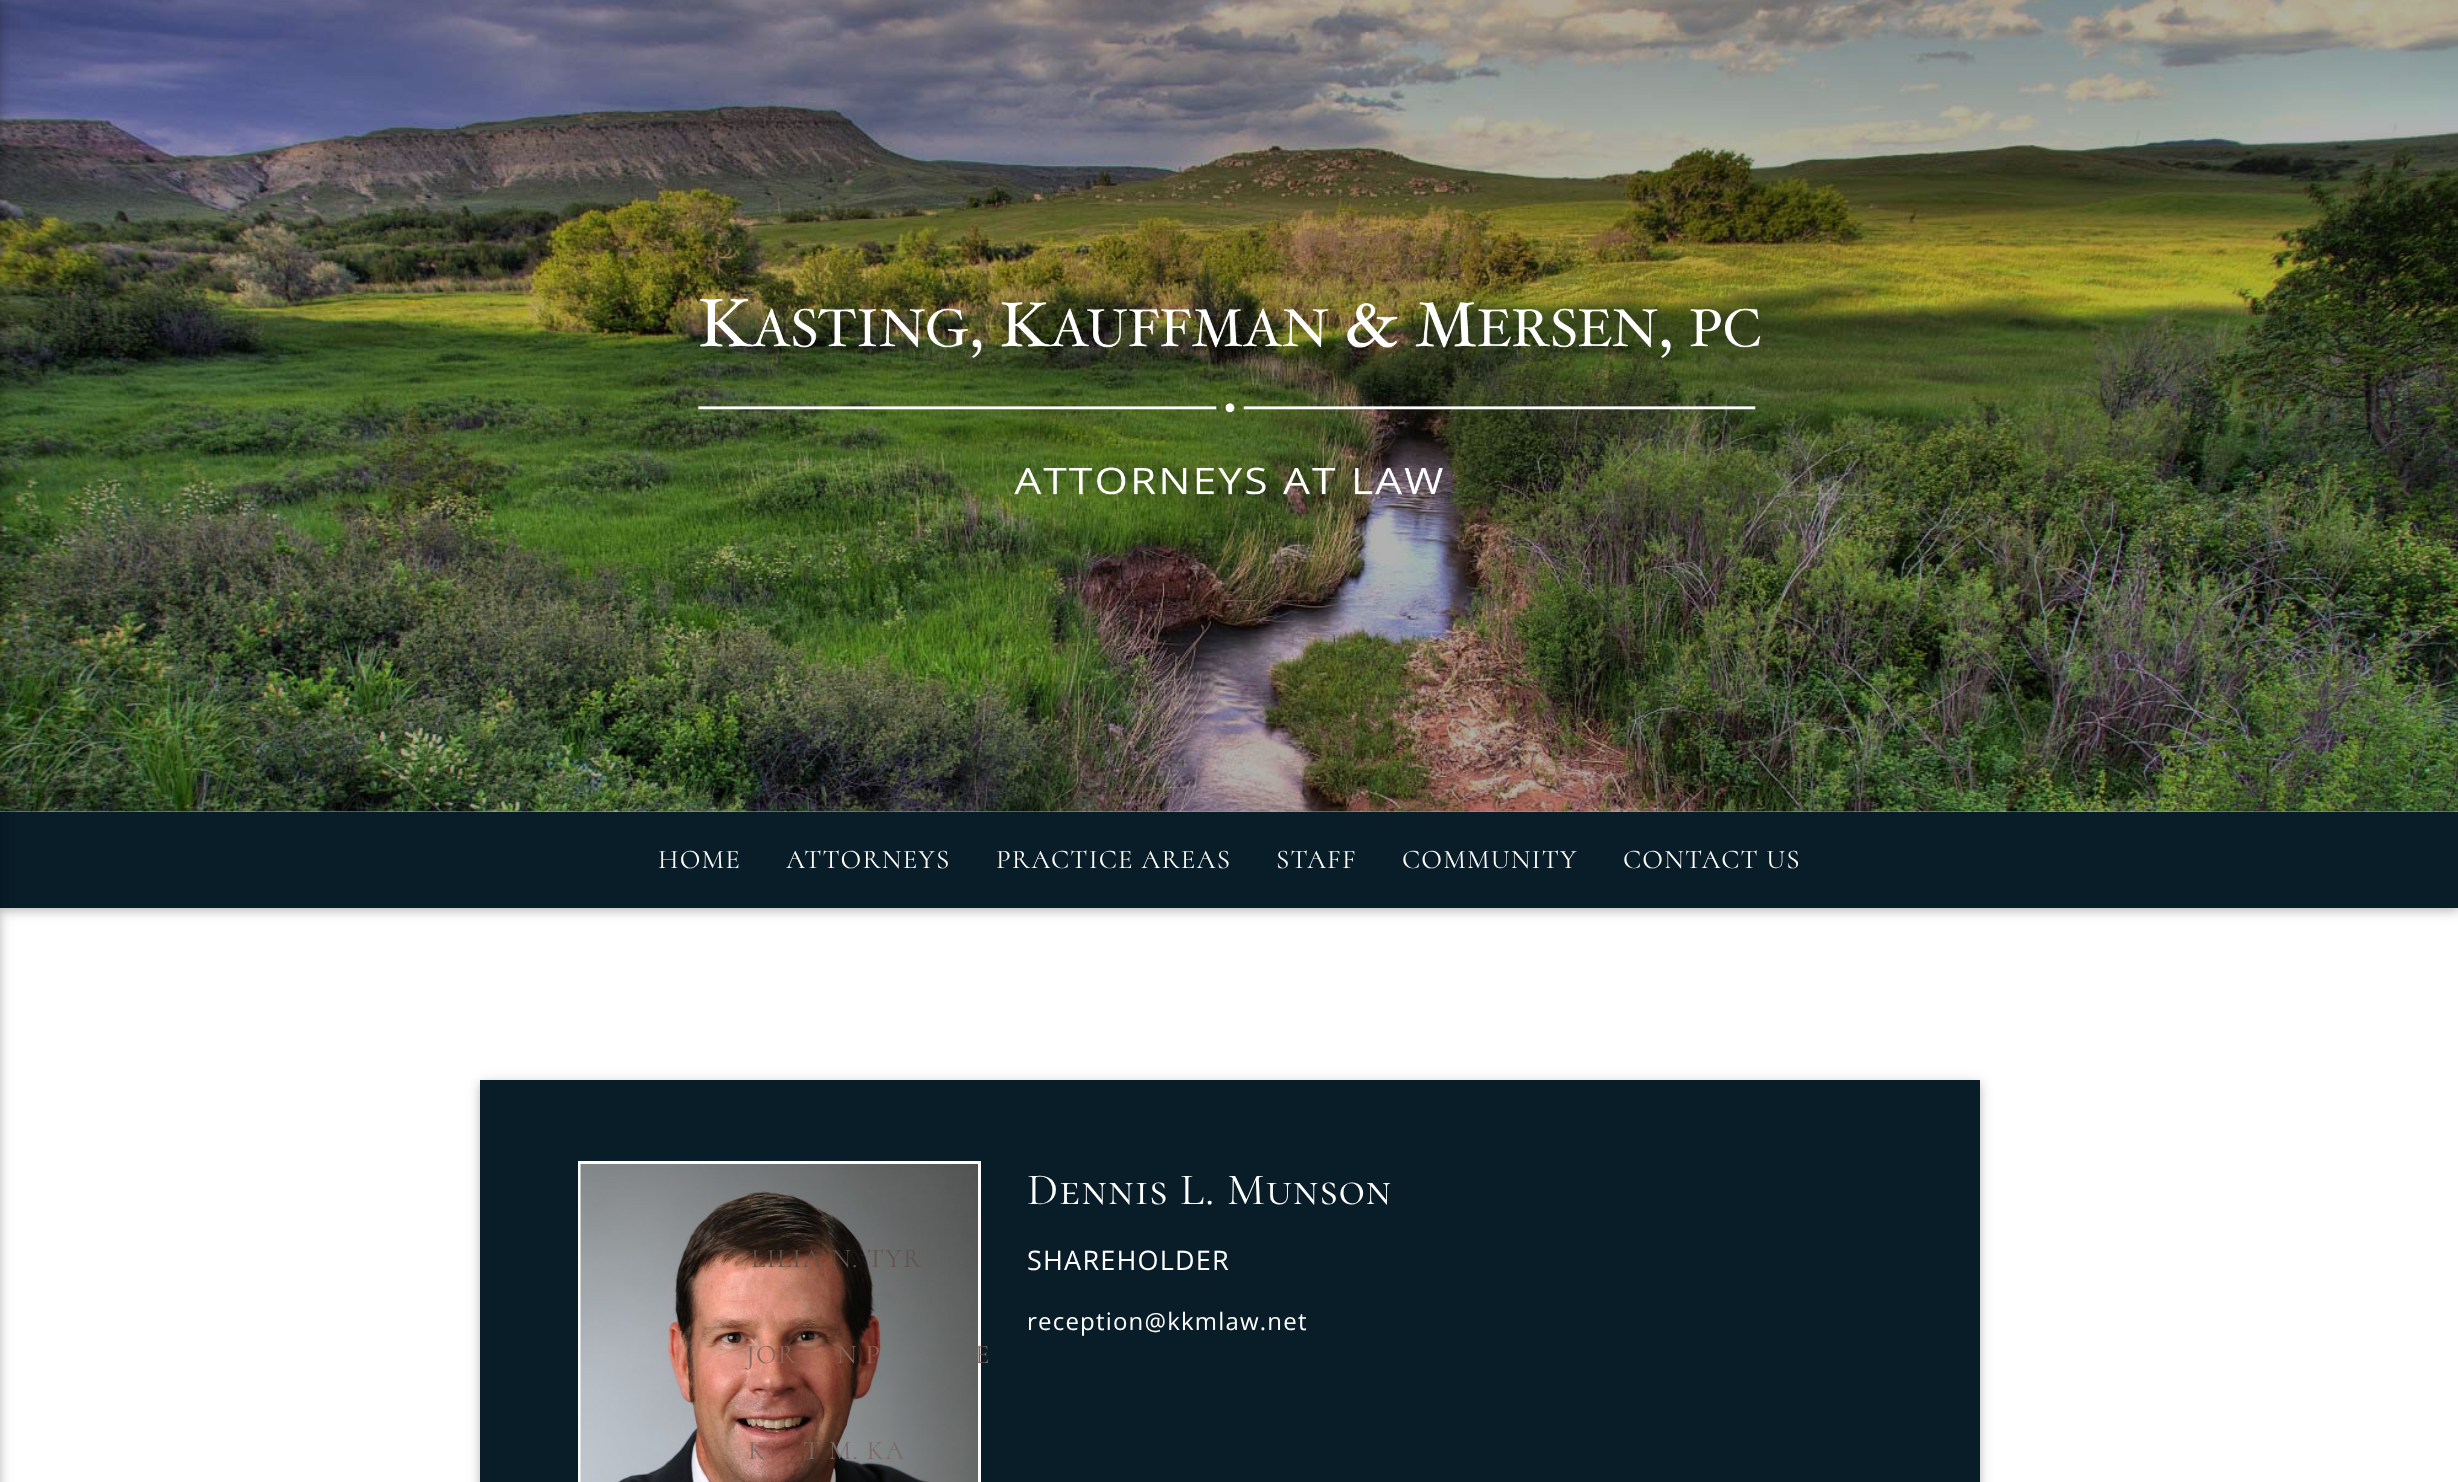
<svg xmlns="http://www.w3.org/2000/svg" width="2458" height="1482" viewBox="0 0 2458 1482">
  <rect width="100%" height="100%" fill="#fff"/>
  <path d="M0 815h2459v96H0z" fill="#0000001f" filter="blur(7.5px)"/>
  <path d="M0 815h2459v96H0z" fill="#00000029" filter="blur(4px)"/>
  <image x="0" y="0" width="2458" height="812" href="img/1.png"/>
  <path d="M0 0h2458v812H0z" fill="#0000004d"/>
  <image x="698" y="298" width="1063" height="197" href="img/2.png"/>
  <path d="M0 812h2458v96H0z" fill="#091d29"/>
  <path d="M-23 3h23v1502H-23z" fill="#0000001f" filter="blur(7.5px)"/>
  <path d="M-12 3h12v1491H-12z" fill="#00000029" filter="blur(4px)"/>
  <rect x="480" y="1083" width="1500" height="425" rx="3" fill="#0000001f" filter="blur(7.5px)"/>
  <rect x="480" y="1083" width="1500" height="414" rx="3" fill="#00000029" filter="blur(4px)"/>
  <path d="M480 1080h1500v402H480z" fill="#091d29"/>
  <path d="M579.5 1162.5h400v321H579.5z" fill="none" stroke="#fff" stroke-width="3"/>
  <image x="580" y="1164" width="398" height="318" href="img/3.png"/>
  <g font-family="Cormorant SC" font-size="27" letter-spacing="1.2" fill="#fff">
    <text x="658" y="868">HOME</text>
    <text x="786" y="868">ATTORNEYS</text>
  </g>
  <text x="751" y="1267" word-spacing="1" font-family="Cormorant SC" font-size="27" letter-spacing="1.2" fill="#62534d">LILIA N. TYR</text>
  <g font-family="Cormorant SC" font-size="27" letter-spacing="1.2" fill="#86655b">
    <text x="746" y="1363">JOR</text>
    <text x="837" y="1363">N P</text>
    <text x="975" y="1363">E</text>
  </g>
  <g font-family="Cormorant SC" font-size="27" letter-spacing="1.2" fill="#7b6a66">
    <text x="748" y="1459">K</text>
    <text x="803" y="1459">T M. KA</text>
  </g>
  <g font-family="Cormorant SC" font-size="27" letter-spacing="1.2" fill="#fff">
    <text x="996" y="868">PRACTICE AREAS</text>
    <text x="1276" y="868">STAFF</text>
    <text x="1402" y="868">COMMUNITY</text>
    <text x="1623" y="868">CONTACT US</text>
  </g>
  <text x="1027" y="1204" font-family="Cormorant SC" font-size="45" letter-spacing="1.2" fill="#fff">Dennis L. Munson</text>
  <text x="1027" y="1270" font-family="Open Sans" font-size="27" letter-spacing="1.2" fill="#fff">SHAREHOLDER</text>
  <text x="1027" y="1330" font-family="Open Sans" font-size="24" letter-spacing="1.2" fill="#fff">reception@kkmlaw.net</text>
</svg>
